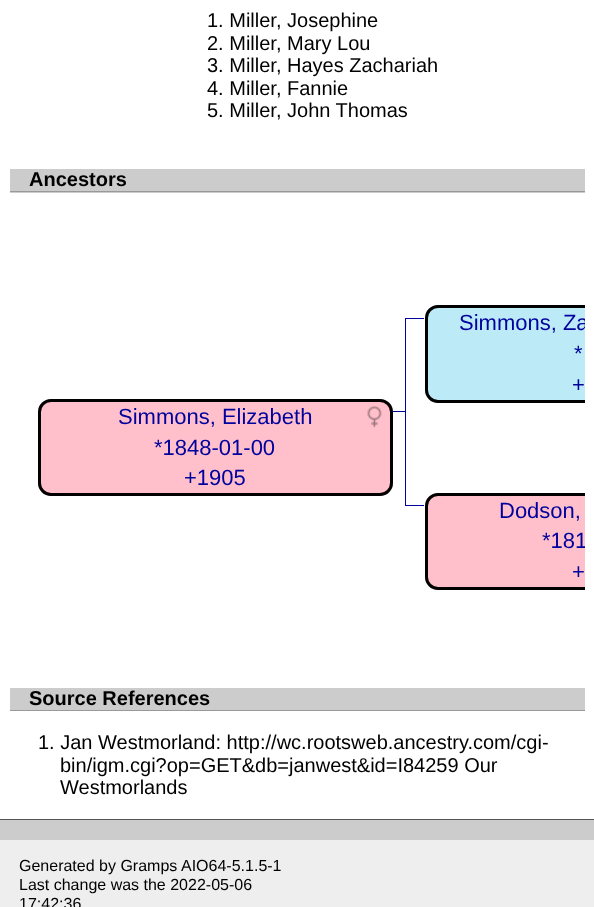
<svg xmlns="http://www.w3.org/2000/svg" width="594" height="907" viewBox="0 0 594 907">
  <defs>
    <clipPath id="clip1"><path d="M10 143h575v518H10z"/></clipPath>
  </defs>
  <rect width="100%" height="100%" fill="#eee"/>
  <path d="M0 0h594v819H0z" fill="#fff"/>
  <path d="M10 169h575v24H10z" fill="#ccc"/>
  <path d="M10 191h575v1H10z" fill="#999"/>
  <path d="M405 318h19v1H405z" fill="#00029d"/>
  <path d="M438 305H585V403H438C431 403 425 397 425 390V318C425 311 431 305 438 305Z" fill="#bceaf6"/>
  <g clip-path="url(#clip1)">
    <rect x="426.5" y="306.5" width="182" height="95" rx="11.5" fill="none" stroke="#000" stroke-width="3"/>
  </g>
  <path d="M405 318h1v95H405z" fill="#00029d"/>
  <path d="M386 411h19v1H386z" fill="#00029d"/>
  <rect x="38" y="399" width="355" height="97" rx="13" fill="#ffc0cb"/>
  <image x="367" y="406" width="15" height="22" href="img/1.png"/>
  <rect x="39.5" y="400.5" width="352" height="94" rx="11.5" fill="none" stroke="#000" stroke-width="3"/>
  <path d="M405 505h19v1H405z" fill="#00029d"/>
  <path d="M405 411h1v95H405z" fill="#00029d"/>
  <path d="M438 493H585V590H438C431 590 425 584 425 577V506C425 499 431 493 438 493Z" fill="#ffc0cb"/>
  <g clip-path="url(#clip1)">
    <rect x="426.5" y="494.5" width="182" height="94" rx="11.5" fill="none" stroke="#000" stroke-width="3"/>
  </g>
  <path d="M10 688h575v22H10z" fill="#ccc"/>
  <path d="M10 710h575v1H10z" fill="#999"/>
  <path d="M0 820h594v20H0z" fill="#ccc"/>
  <path d="M0 819h594v1H0z" fill="#555"/>
  <g font-family="Liberation Sans" font-size="20" fill="#000">
    <text x="207" y="27">1. Miller, Josephine</text>
    <text x="207" y="50">2. Miller, Mary Lou</text>
    <text x="207" y="72">3. Miller, Hayes Zachariah</text>
    <text x="207" y="95">4. Miller, Fannie</text>
    <text x="207" y="117">5. Miller, John Thomas</text>
  </g>
  <text x="29" y="186" font-family="Liberation Sans" font-size="20" font-weight="bold" fill="#000">Ancestors</text>
  <g clip-path="url(#clip1)">
    <text x="459" y="330" font-family="Liberation Sans" font-size="22" fill="#00029d">Simmons, Za</text>
  </g>
  <g font-family="Liberation Sans" font-size="22" fill="#00029d">
    <text x="574" y="361">*</text>
    <text x="572" y="392">+</text>
    <text x="118" y="424">Simmons, Elizabeth</text>
    <text x="154" y="455">*1848-01-00</text>
    <text x="184" y="485">+1905</text>
    <text x="499" y="518">Dodson,</text>
  </g>
  <g clip-path="url(#clip1)">
    <text x="542" y="548" font-family="Liberation Sans" font-size="22" fill="#00029d">*181</text>
  </g>
  <text x="572" y="579" font-family="Liberation Sans" font-size="22" fill="#00029d">+</text>
  <text x="29" y="705" font-family="Liberation Sans" font-size="20" font-weight="bold" fill="#000">Source References</text>
  <g font-family="Liberation Sans" font-size="20" fill="#000">
    <text x="38" y="749">1. Jan Westmorland: http://wc.rootsweb.ancestry.com/cgi-</text>
    <text x="60" y="772">bin/igm.cgi?op=GET&amp;db=janwest&amp;id=I84259 Our</text>
    <text x="60" y="794">Westmorlands</text>
  </g>
  <g font-family="Liberation Sans" font-size="16" fill="#000">
    <text x="19" y="871">Generated by Gramps</text>
    <text x="181" y="871">AIO64-5.1.5-1</text>
    <text x="19" y="890">Last change was the 2022-05-06</text>
    <text x="19" y="909">17:42:36</text>
  </g>
</svg>
